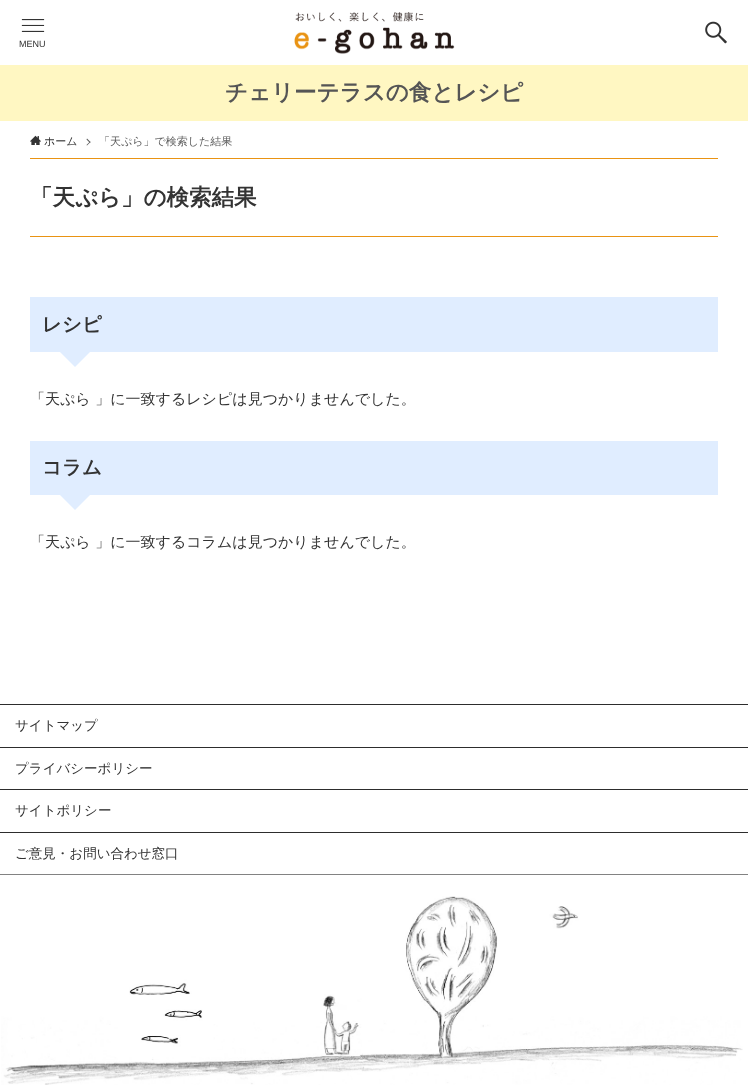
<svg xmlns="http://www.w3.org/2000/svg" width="748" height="1092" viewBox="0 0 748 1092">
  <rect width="100%" height="100%" fill="#fff"/>
  <image x="21" y="19" width="24" height="13" href="img/1.png"/>
  <image x="294" y="12" width="161" height="42" href="img/2.png"/>
  <image x="705" y="21" width="22" height="23" href="img/3.png"/>
  <path d="M0 65h748v56H0z" fill="#fff7c2"/>
  <image x="30" y="135" width="11" height="10" href="img/4.png"/>
  <path d="M87 138.5L90.5 142L90 143L86.5 139.5Z" fill="#5c5c5c"/>
  <path d="M90 141.5L90.5 142L87 145.5L86.5 145Z" fill="#5c5c5c"/>
  <path d="M30 158h688v1H30z" fill="#e99313"/>
  <path d="M30 236h688v1H30z" fill="#e99313"/>
  <path d="M30 297h688v55H30z" fill="#e0edff"/>
  <path d="M60 352H90L75 367Z" fill="#e0edff"/>
  <path d="M30 441h688v54H30z" fill="#e0edff"/>
  <path d="M60 495H90L75 510Z" fill="#e0edff"/>
  <path d="M0 704h748v1H0z" fill="#2d2d2d"/>
  <path d="M0 747h748v1H0z" fill="#2d2d2d"/>
  <path d="M0 789h748v1H0z" fill="#2d2d2d"/>
  <path d="M0 832h748v1H0z" fill="#2d2d2d"/>
  <path d="M0 874h748v1H0z" fill="#828282"/>
  <image x="1" y="896" width="742" height="189" href="img/5.png"/>
  <text x="19" y="47" font-family="Liberation Sans" font-size="9" fill="#333">MENU</text>
  <text x="225" y="100" font-family="WenQuanYi Zen Hei" font-size="22.5" font-weight="bold" fill="#555">チェリーテラスの食とレシピ</text>
  <text x="44" y="145" font-family="WenQuanYi Zen Hei" font-size="11" font-weight="500" fill="#333">ホーム</text>
  <text x="99" y="145" font-family="WenQuanYi Zen Hei" font-size="11" font-weight="500" fill="#5c5c5c">「天ぷら」で検索した結果</text>
  <text x="30" y="205" font-family="WenQuanYi Zen Hei" font-size="22.5" font-weight="bold" fill="#333">「天ぷら」の検索結果</text>
  <text x="42" y="331" font-family="WenQuanYi Zen Hei" font-size="19.5" font-weight="bold" fill="#333">レシピ</text>
  <text x="30" y="404" font-family="WenQuanYi Zen Hei" font-size="15" font-weight="500" fill="#333">「天ぷら 」に一致するレシピは見つかりませんでした。</text>
  <text x="42" y="474" font-family="WenQuanYi Zen Hei" font-size="19.5" font-weight="bold" fill="#333">コラム</text>
  <text x="30" y="547" font-family="WenQuanYi Zen Hei" font-size="15" font-weight="500" fill="#333">「天ぷら 」に一致するコラムは見つかりませんでした。</text>
  <g font-family="WenQuanYi Zen Hei" font-size="13.5" font-weight="500" fill="#333">
    <text x="15" y="730">サイトマップ</text>
    <text x="15" y="773">プライバシーポリシー</text>
    <text x="15" y="815">サイトポリシー</text>
    <text x="15" y="858">ご意見・お問い合わせ窓口</text>
  </g>
</svg>
